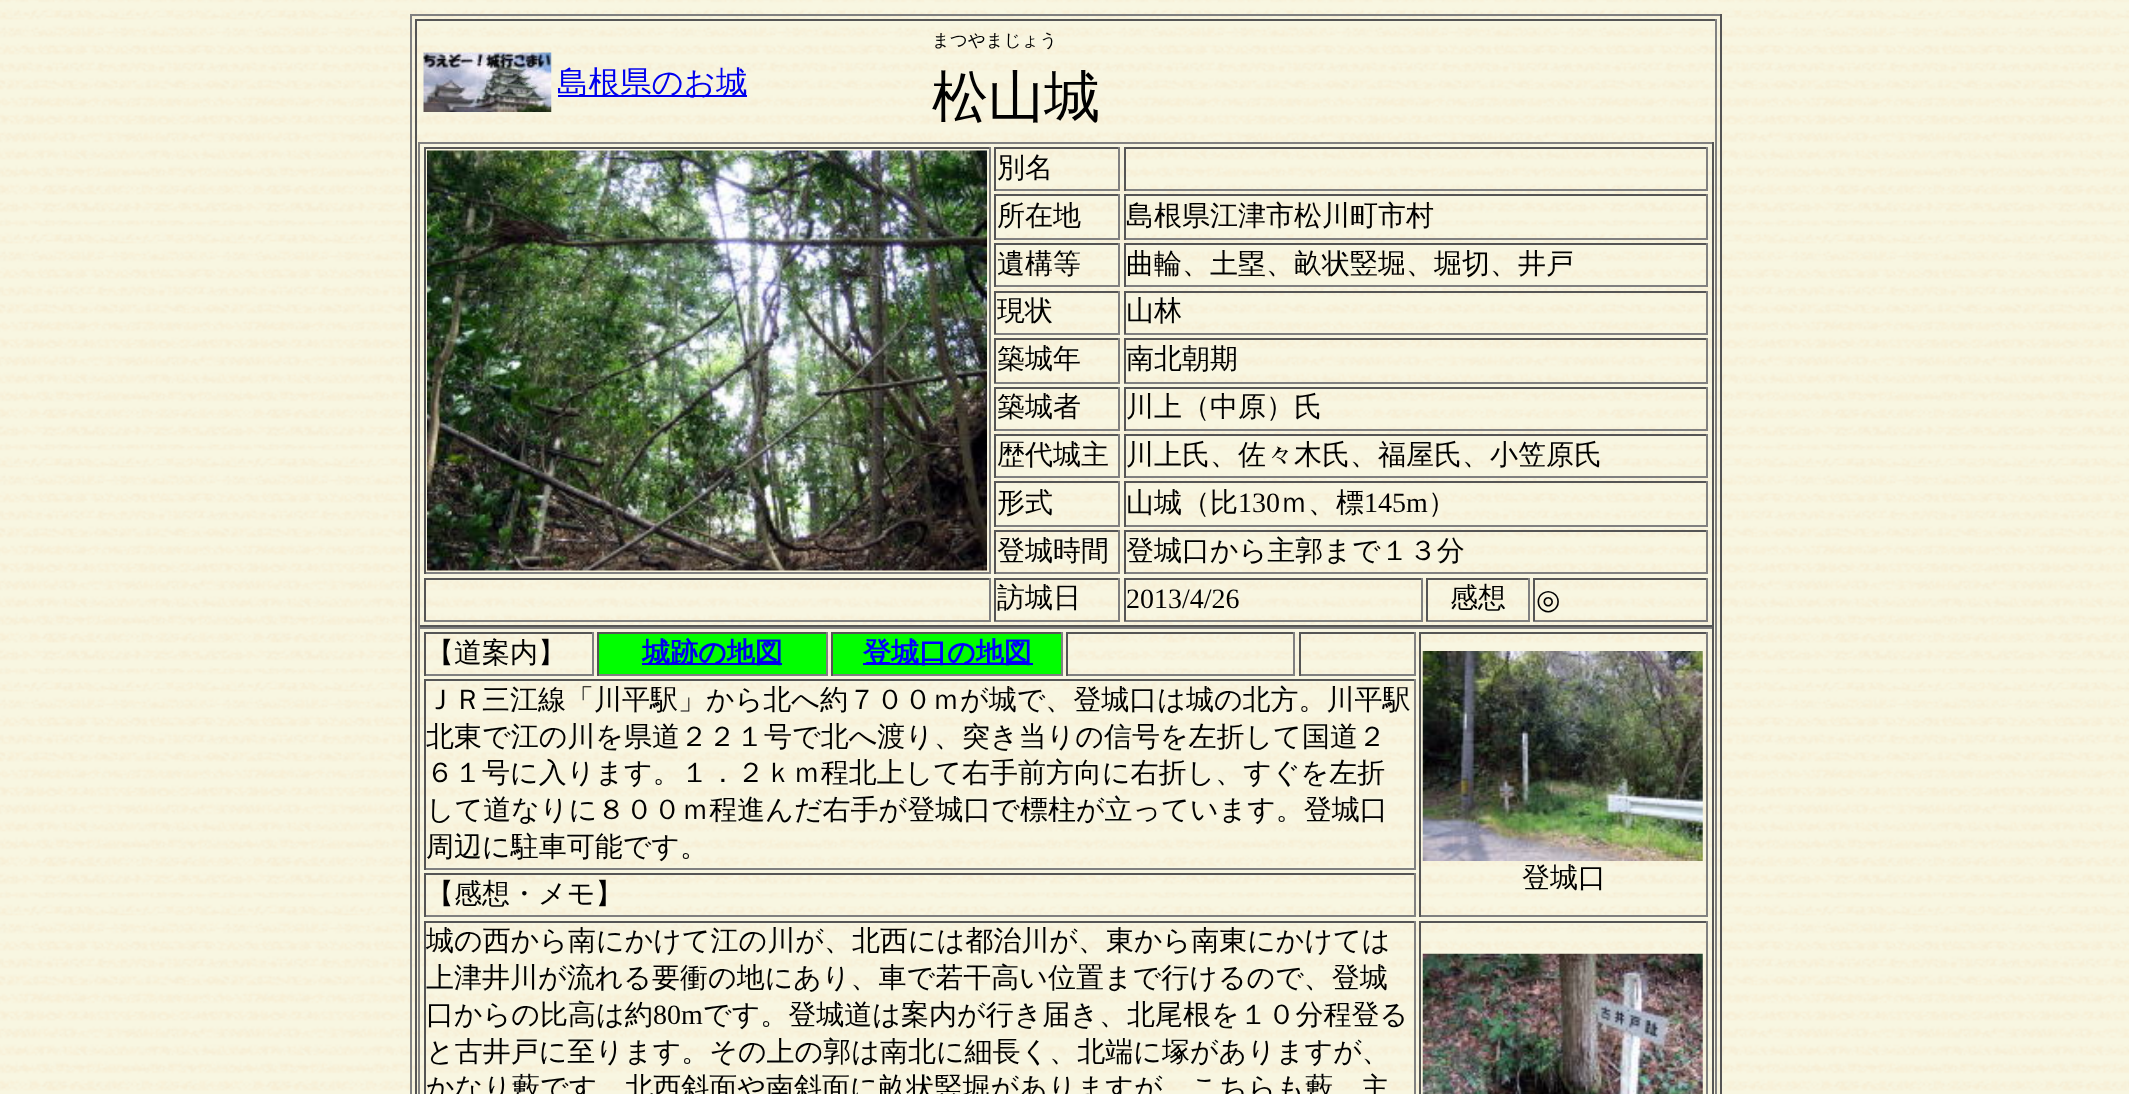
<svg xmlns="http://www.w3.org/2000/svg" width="2129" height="1094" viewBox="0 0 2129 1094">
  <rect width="100%" height="100%" fill="#fff"/>
  <image x="0" y="0" width="2129" height="1094" href="img/1.png"/>
  <path d="M410 14h1312v2H410z" fill="#808080"/>
  <path d="M1720 14h2v1080H1720z" fill="#555"/>
  <path d="M410 14h2v1080H410z" fill="#808080"/>
  <path d="M415 19h1302v2H415z" fill="#555"/>
  <path d="M1715 19h2v1075H1715z" fill="#808080"/>
  <path d="M415 19h2v1075H415z" fill="#555"/>
  <image x="423" y="52" width="129" height="60" href="img/2.png"/>
  <path d="M558 95h189v2H558z" fill="#00e"/>
  <path d="M418 142h1295v2H418z" fill="#808080"/>
  <path d="M1712 142h2v485H1712z" fill="#555"/>
  <path d="M418 625h1295v2H418z" fill="#555"/>
  <path d="M418 142h2v485H418z" fill="#808080"/>
  <path d="M424 147h567v2H424z" fill="#555"/>
  <path d="M989 147h2v427H989z" fill="#808080"/>
  <path d="M424 572h567v2H424z" fill="#808080"/>
  <path d="M424 147h2v427H424z" fill="#555"/>
  <image x="427" y="150" width="560" height="421" href="img/3.png"/>
  <path d="M994 147h126v2H994z" fill="#555"/>
  <path d="M1118 147h2v44H1118z" fill="#808080"/>
  <path d="M994 189h126v2H994z" fill="#808080"/>
  <path d="M994 147h2v44H994z" fill="#555"/>
  <path d="M1124 147h584v2H1124z" fill="#555"/>
  <path d="M1706 147h2v44H1706z" fill="#808080"/>
  <path d="M1124 189h584v2H1124z" fill="#808080"/>
  <path d="M1124 147h2v44H1124z" fill="#555"/>
  <path d="M994 194h126v2H994z" fill="#555"/>
  <path d="M1118 194h2v46H1118z" fill="#808080"/>
  <path d="M994 238h126v2H994z" fill="#808080"/>
  <path d="M994 194h2v46H994z" fill="#555"/>
  <path d="M1124 194h584v2H1124z" fill="#555"/>
  <path d="M1706 194h2v46H1706z" fill="#808080"/>
  <path d="M1124 238h584v2H1124z" fill="#808080"/>
  <path d="M1124 194h2v46H1124z" fill="#555"/>
  <path d="M994 243h126v2H994z" fill="#555"/>
  <path d="M1118 243h2v44H1118z" fill="#808080"/>
  <path d="M994 285h126v2H994z" fill="#808080"/>
  <path d="M994 243h2v44H994z" fill="#555"/>
  <path d="M1124 243h584v2H1124z" fill="#555"/>
  <path d="M1706 243h2v44H1706z" fill="#808080"/>
  <path d="M1124 285h584v2H1124z" fill="#808080"/>
  <path d="M1124 243h2v44H1124z" fill="#555"/>
  <path d="M994 291h126v2H994z" fill="#555"/>
  <path d="M1118 291h2v43H1118z" fill="#808080"/>
  <path d="M994 333h126v2H994z" fill="#808080"/>
  <path d="M994 291h2v43H994z" fill="#555"/>
  <path d="M1124 291h584v2H1124z" fill="#555"/>
  <path d="M1706 291h2v43H1706z" fill="#808080"/>
  <path d="M1124 333h584v2H1124z" fill="#808080"/>
  <path d="M1124 291h2v43H1124z" fill="#555"/>
  <path d="M994 338h126v2H994z" fill="#555"/>
  <path d="M1118 338h2v45H1118z" fill="#808080"/>
  <path d="M994 382h126v2H994z" fill="#808080"/>
  <path d="M994 338h2v45H994z" fill="#555"/>
  <path d="M1124 338h584v2H1124z" fill="#555"/>
  <path d="M1706 338h2v45H1706z" fill="#808080"/>
  <path d="M1124 382h584v2H1124z" fill="#808080"/>
  <path d="M1124 338h2v45H1124z" fill="#555"/>
  <path d="M994 387h126v2H994z" fill="#555"/>
  <path d="M1118 387h2v44H1118z" fill="#808080"/>
  <path d="M994 429h126v2H994z" fill="#808080"/>
  <path d="M994 387h2v44H994z" fill="#555"/>
  <path d="M1124 387h584v2H1124z" fill="#555"/>
  <path d="M1706 387h2v44H1706z" fill="#808080"/>
  <path d="M1124 429h584v2H1124z" fill="#808080"/>
  <path d="M1124 387h2v44H1124z" fill="#555"/>
  <path d="M994 434h126v2H994z" fill="#555"/>
  <path d="M1118 434h2v44H1118z" fill="#808080"/>
  <path d="M994 476h126v2H994z" fill="#808080"/>
  <path d="M994 434h2v44H994z" fill="#555"/>
  <path d="M1124 434h584v2H1124z" fill="#555"/>
  <path d="M1706 434h2v44H1706z" fill="#808080"/>
  <path d="M1124 476h584v2H1124z" fill="#808080"/>
  <path d="M1124 434h2v44H1124z" fill="#555"/>
  <path d="M994 481h126v2H994z" fill="#555"/>
  <path d="M1118 481h2v46H1118z" fill="#808080"/>
  <path d="M994 525h126v2H994z" fill="#808080"/>
  <path d="M994 481h2v46H994z" fill="#555"/>
  <path d="M1124 481h584v2H1124z" fill="#555"/>
  <path d="M1706 481h2v46H1706z" fill="#808080"/>
  <path d="M1124 525h584v2H1124z" fill="#808080"/>
  <path d="M1124 481h2v46H1124z" fill="#555"/>
  <path d="M994 530h126v2H994z" fill="#555"/>
  <path d="M1118 530h2v44H1118z" fill="#808080"/>
  <path d="M994 572h126v2H994z" fill="#808080"/>
  <path d="M994 530h2v44H994z" fill="#555"/>
  <path d="M1124 530h584v2H1124z" fill="#555"/>
  <path d="M1706 530h2v44H1706z" fill="#808080"/>
  <path d="M1124 572h584v2H1124z" fill="#808080"/>
  <path d="M1124 530h2v44H1124z" fill="#555"/>
  <path d="M424 578h567v2H424z" fill="#555"/>
  <path d="M989 578h2v43H989z" fill="#808080"/>
  <path d="M424 620h567v2H424z" fill="#808080"/>
  <path d="M424 578h2v43H424z" fill="#555"/>
  <path d="M994 578h126v2H994z" fill="#555"/>
  <path d="M1118 578h2v43H1118z" fill="#808080"/>
  <path d="M994 620h126v2H994z" fill="#808080"/>
  <path d="M994 578h2v43H994z" fill="#555"/>
  <path d="M1124 578h299v2H1124z" fill="#555"/>
  <path d="M1421 578h2v43H1421z" fill="#808080"/>
  <path d="M1124 620h299v2H1124z" fill="#808080"/>
  <path d="M1124 578h2v43H1124z" fill="#555"/>
  <path d="M1426 578h104v2H1426z" fill="#555"/>
  <path d="M1528 578h2v43H1528z" fill="#808080"/>
  <path d="M1426 620h104v2H1426z" fill="#808080"/>
  <path d="M1426 578h2v43H1426z" fill="#555"/>
  <path d="M1533 578h175v2H1533z" fill="#555"/>
  <path d="M1706 578h2v43H1706z" fill="#808080"/>
  <path d="M1533 620h175v2H1533z" fill="#808080"/>
  <path d="M1533 578h2v43H1533z" fill="#555"/>
  <path d="M418 627h1295v2H418z" fill="#808080"/>
  <path d="M1712 627h2v467H1712z" fill="#555"/>
  <path d="M418 627h2v467H418z" fill="#808080"/>
  <path d="M424 632h169v2H424z" fill="#555"/>
  <path d="M592 632h2v44H592z" fill="#808080"/>
  <path d="M424 674h169v2H424z" fill="#808080"/>
  <path d="M424 632h2v44H424z" fill="#555"/>
  <path d="M599 634h227v40H599z" fill="#0f0"/>
  <path d="M597 632h231v2H597z" fill="#555"/>
  <path d="M826 632h2v44H826z" fill="#808080"/>
  <path d="M597 674h231v2H597z" fill="#808080"/>
  <path d="M597 632h2v44H597z" fill="#555"/>
  <path d="M642 663h140v2H642z" fill="#00e"/>
  <path d="M833 634h228v40H833z" fill="#0f0"/>
  <path d="M831 632h231v2H831z" fill="#555"/>
  <path d="M1061 632h2v44H1061z" fill="#808080"/>
  <path d="M831 674h231v2H831z" fill="#808080"/>
  <path d="M831 632h2v44H831z" fill="#555"/>
  <path d="M863 663h170v2H863z" fill="#00e"/>
  <path d="M1066 632h229v2H1066z" fill="#555"/>
  <path d="M1293 632h2v44H1293z" fill="#808080"/>
  <path d="M1066 674h229v2H1066z" fill="#808080"/>
  <path d="M1066 632h2v44H1066z" fill="#555"/>
  <path d="M1299 632h117v2H1299z" fill="#555"/>
  <path d="M1414 632h2v44H1414z" fill="#808080"/>
  <path d="M1299 674h117v2H1299z" fill="#808080"/>
  <path d="M1299 632h2v44H1299z" fill="#555"/>
  <path d="M1419 632h289v2H1419z" fill="#555"/>
  <path d="M1706 632h2v285H1706z" fill="#808080"/>
  <path d="M1419 915h289v2H1419z" fill="#808080"/>
  <path d="M1419 632h2v285H1419z" fill="#555"/>
  <image x="1422" y="651" width="281" height="210" href="img/4.png"/>
  <path d="M424 679h992v2H424z" fill="#555"/>
  <path d="M1414 679h2v191H1414z" fill="#808080"/>
  <path d="M424 868h992v2H424z" fill="#808080"/>
  <path d="M424 679h2v191H424z" fill="#555"/>
  <path d="M424 873h992v2H424z" fill="#555"/>
  <path d="M1414 873h2v44H1414z" fill="#808080"/>
  <path d="M424 915h992v2H424z" fill="#808080"/>
  <path d="M424 873h2v44H424z" fill="#555"/>
  <path d="M424 921h992v2H424z" fill="#555"/>
  <path d="M1414 921h2v173H1414z" fill="#808080"/>
  <path d="M424 921h2v173H424z" fill="#555"/>
  <path d="M1419 921h289v2H1419z" fill="#555"/>
  <path d="M1706 921h2v173H1706z" fill="#808080"/>
  <path d="M1419 921h2v173H1419z" fill="#555"/>
  <image x="1422" y="953" width="281" height="141" href="img/5.png"/>
  <text x="932" y="46" font-family="WenQuanYi Zen Hei" font-size="17.5" font-weight="500" fill="#000">まつやまじょう</text>
  <text x="557" y="93" font-family="WenQuanYi Zen Hei" font-size="31.5" font-weight="500" fill="#00e">島根県のお城</text>
  <text x="932" y="116" font-family="WenQuanYi Zen Hei" font-size="56" font-weight="500" fill="#000">松山城</text>
  <g font-family="WenQuanYi Zen Hei" font-size="28" font-weight="500" fill="#000">
    <text x="997" y="177">別名</text>
    <text x="997" y="225">所在地</text>
    <text x="1126" y="225">島根県江津市松川町市村</text>
    <text x="997" y="273">遺構等</text>
    <text x="1126" y="273">曲輪、土塁、畝状竪堀、堀切、井戸</text>
    <text x="997" y="320">現状</text>
    <text x="1126" y="320">山林</text>
    <text x="997" y="368">築城年</text>
    <text x="1126" y="368">南北朝期</text>
    <text x="997" y="416">築城者</text>
    <text x="1126" y="416">川上（中原）氏</text>
    <text x="997" y="464">歴代城主</text>
    <text x="1126" y="464">川上氏、佐々木氏、福屋氏、小笠原氏</text>
    <text x="997" y="512">形式</text>
    <text x="1126" y="512">山城（比</text>
  </g>
  <text x="1238" y="512" font-family="Liberation Serif" font-size="28" fill="#000">130</text>
  <text x="1280" y="512" font-family="WenQuanYi Zen Hei" font-size="28" font-weight="500" fill="#000">ｍ、標</text>
  <text x="1364" y="512" font-family="Liberation Serif" font-size="28" fill="#000">145m</text>
  <g font-family="WenQuanYi Zen Hei" font-size="28" font-weight="500" fill="#000">
    <text x="1428" y="512">）</text>
    <text x="997" y="560">登城時間</text>
    <text x="1126" y="560">登城口から主郭まで１３分</text>
    <text x="997" y="607">訪城日</text>
  </g>
  <text x="1126" y="608" font-family="Liberation Serif" font-size="28" fill="#000">2013/4/26</text>
  <text x="1450" y="607" font-family="WenQuanYi Zen Hei" font-size="28" font-weight="500" fill="#000">感想</text>
  <text x="1536" y="609" font-family="DejaVu Sans" font-size="28" fill="#000">◎</text>
  <text x="426" y="662" font-family="WenQuanYi Zen Hei" font-size="28" font-weight="500" fill="#000">【道案内】</text>
  <text x="642" y="662" font-family="WenQuanYi Zen Hei" font-size="28" font-weight="bold" fill="#00e">城跡の地図</text>
  <text x="863" y="662" font-family="WenQuanYi Zen Hei" font-size="28" font-weight="bold" fill="#00f">登城口の地図</text>
  <g font-family="WenQuanYi Zen Hei" font-size="28" font-weight="500" fill="#000">
    <text x="1522" y="887">登城口</text>
    <text x="426" y="709">ＪＲ三江線「川平駅」から北へ約７００ｍが城で、登城口は城の北方。川平駅</text>
    <text x="426" y="746">北東で江の川を県道２２１号で北へ渡り、突き当りの信号を左折して国道２</text>
    <text x="426" y="782">６１号に入ります。１．２ｋｍ程北上して右手前方向に右折し、すぐを左折</text>
    <text x="426" y="819">して道なりに８００ｍ程進んだ右手が登城口で標柱が立っています。登城口</text>
    <text x="426" y="856">周辺に駐車可能です。</text>
    <text x="426" y="903">【感想・メモ】</text>
    <text x="426" y="950">城の西から南にかけて江の川が、北西には都治川が、東から南東にかけては</text>
    <text x="426" y="987">上津井川が流れる要衝の地にあり、車で若干高い位置まで行けるので、登城</text>
    <text x="426" y="1024">口からの比高は約</text>
  </g>
  <text x="653" y="1024" font-family="Liberation Serif" font-size="28" fill="#000">80m</text>
  <g font-family="WenQuanYi Zen Hei" font-size="28" font-weight="500" fill="#000">
    <text x="703" y="1024">です。登城道は案内が行き届き、北尾根を１０分程登る</text>
    <text x="426" y="1061">と古井戸に至ります。その上の郭は南北に細長く、北端に塚がありますが、</text>
    <text x="426" y="1097">かなり藪です。北西斜面や南斜面に畝状竪堀がありますが、こちらも藪。主</text>
  </g>
</svg>
